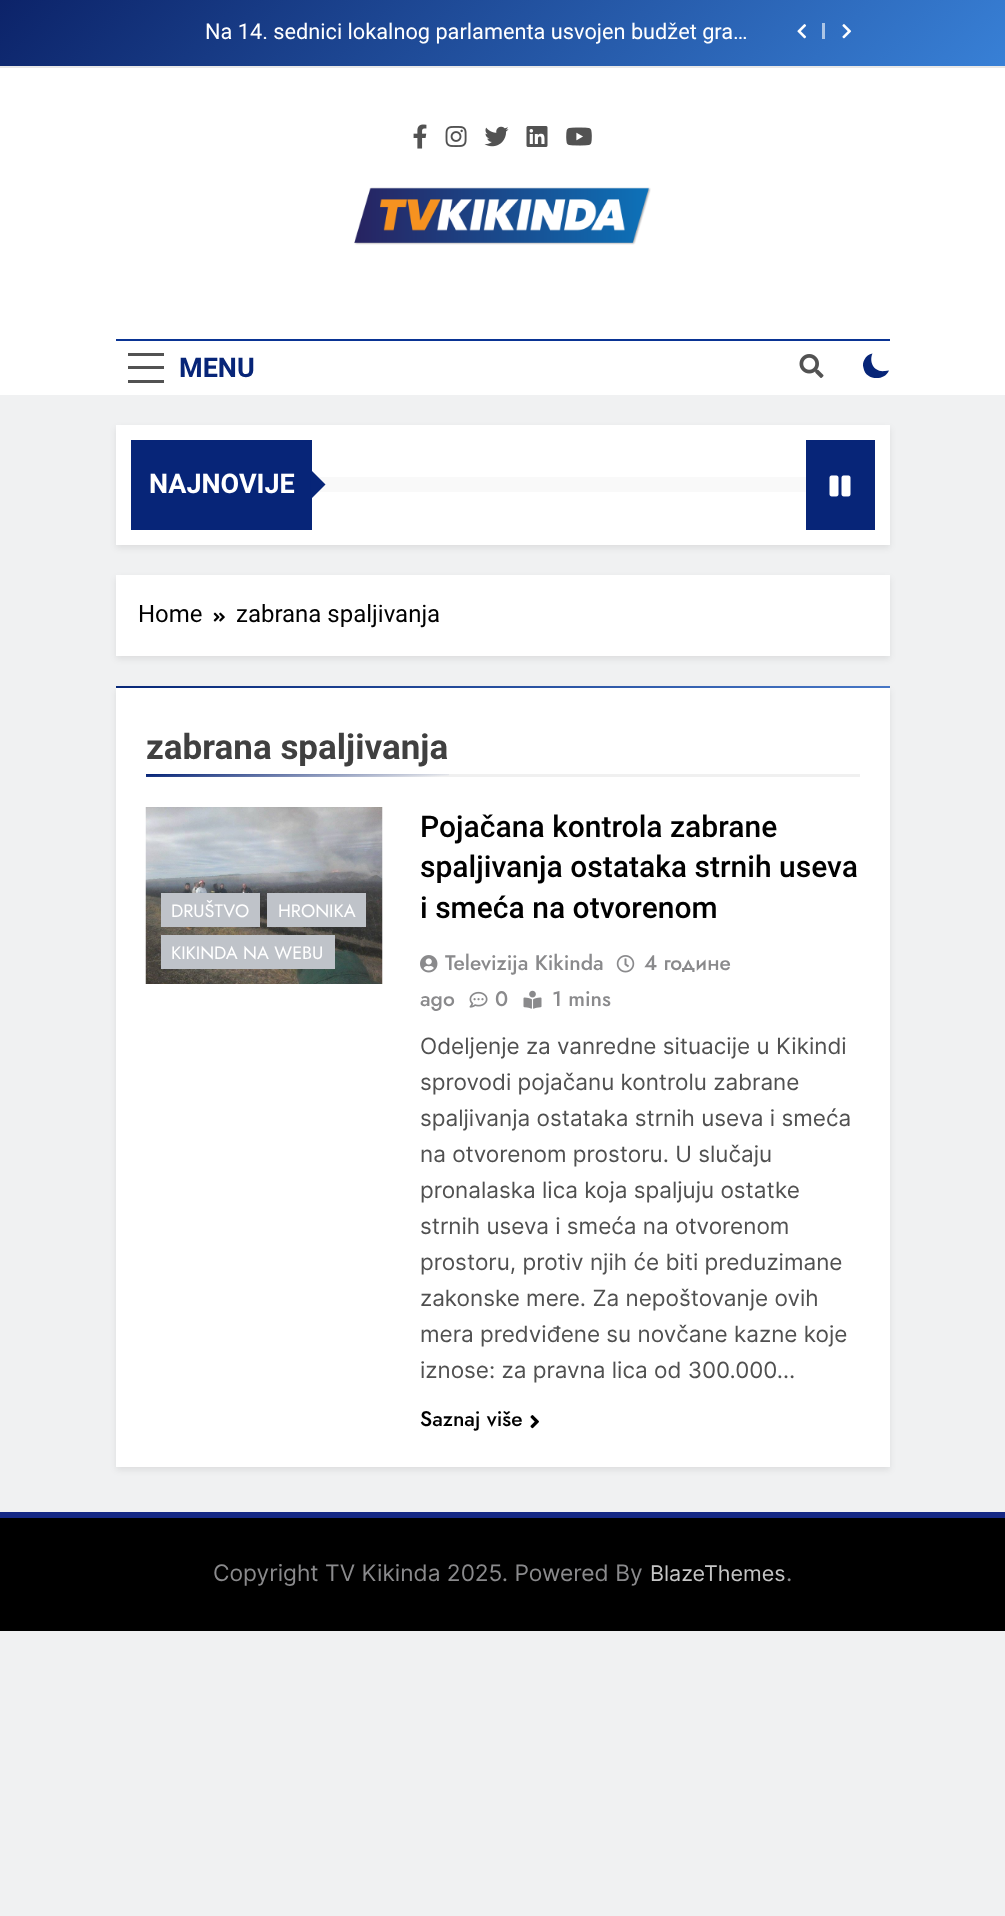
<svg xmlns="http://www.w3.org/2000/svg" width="1005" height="1916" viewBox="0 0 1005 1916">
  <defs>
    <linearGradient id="g1" gradientUnits="userSpaceOnUse" x1="235" y1="-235" x2="770" y2="301"><stop offset="0" stop-color="#0c2369"/><stop offset="1" stop-color="#3880d6"/></linearGradient>
    <linearGradient id="g2" gradientUnits="userSpaceOnUse" x1="309" y1="492" x2="696" y2="880"><stop offset="0" stop-color="#082878"/><stop offset="1" stop-color="#4676c5"/></linearGradient>
    <linearGradient id="g3" gradientUnits="userSpaceOnUse" x1="296" y1="763" x2="298" y2="788"><stop offset="0" stop-color="#072578"/><stop offset="1" stop-color="#f0f0f0"/></linearGradient>
  </defs>
  <rect width="100%" height="100%" fill="#f0f1f2"/>
  <path d="M0 0h1005v66H0z" fill="url(#g1)"/>
  <path d="M0 66h1005v2H0z" fill="#e8e8e8"/>
  <image x="797" y="24" width="10" height="15" href="img/1.png"/>
  <path d="M822 23h3v16H822z" fill="#acc5e6"/>
  <image x="842" y="24" width="10" height="15" href="img/2.png"/>
  <path d="M0 68h1005v327H0z" fill="#fff"/>
  <image x="413" y="124" width="14" height="25" href="img/3.png"/>
  <image x="445" y="126" width="22" height="21" href="img/4.png"/>
  <image x="484" y="126" width="25" height="21" href="img/5.png"/>
  <image x="526" y="126" width="22" height="21" href="img/6.png"/>
  <image x="566" y="127" width="26" height="19" href="img/7.png"/>
  <image x="354" y="187" width="297" height="58" href="img/8.png"/>
  <path d="M116 339h774v2H116z" fill="#0a3494"/>
  <path d="M128 353h36v3H128z" fill="#525252"/>
  <path d="M128 366h36v3H128z" fill="#525252"/>
  <path d="M128 380h36v3H128z" fill="#525252"/>
  <image x="799" y="354" width="25" height="24" href="img/9.png"/>
  <path d="M889 370.5L885 371C873 372.5 869 361 872.5 353.5C869 354 866 356.5 864.5 359.5C863 362 862.5 365 863.5 368C865.5 380.5 884.5 381.5 889 370.5Z" fill="#072578"/>
  <path d="M116 428h774v120H116z" fill="#00000014" filter="blur(3px)"/>
  <path d="M116 425h774v120H116z" fill="#fff"/>
  <path d="M131 440h181v90H131z" fill="#072578"/>
  <path d="M318 477h488v15H318z" fill="#f9f9f9"/>
  <path d="M310.5 499.5V469.5L325.5 484.5Z" fill="#072578"/>
  <path d="M806 440h69v90H806z" fill="#072578"/>
  <image x="829" y="475" width="22" height="22" href="img/10.png"/>
  <path d="M116 578h774v81H116z" fill="#00000014" filter="blur(3px)"/>
  <path d="M116 575h774v81H116z" fill="#fff"/>
  <image x="213" y="612" width="12" height="10" href="img/11.png"/>
  <path d="M116 690h774v780H116z" fill="#00000014" filter="blur(3px)"/>
  <path d="M116 688h774v779H116z" fill="#fff"/>
  <path d="M116 686h774v2H116z" fill="url(#g2)"/>
  <path d="M449 774h411v3H449z" fill="#f0f0f0"/>
  <path d="M146 774h303v3H146z" fill="url(#g3)"/>
  <image x="145" y="807" width="238" height="177" href="img/12.png"/>
  <path d="M161 893h99v34H161z" fill="#bfc3c9"/>
  <path d="M267 893h99v34H267z" fill="#bfc3c9"/>
  <path d="M161 935h174v34H161z" fill="#bfc3c9"/>
  <image x="420" y="955" width="18" height="18" href="img/13.png"/>
  <image x="616" y="955" width="19" height="18" href="img/14.png"/>
  <image x="469" y="991" width="19" height="17" href="img/15.png"/>
  <image x="523" y="990" width="19" height="19" href="img/16.png"/>
  <image x="530" y="1415" width="9" height="14" href="img/17.png"/>
  <path d="M0 1512h1005v6H0z" fill="#152885"/>
  <path d="M0 1518h1005v113H0z" fill="#000"/>
  <text x="205" y="39" font-family="Roboto" font-size="21.75" fill="#fff">Na 14. sednici lokalnog parlamenta usvojen budžet gra…</text>
  <text x="179" y="377" font-family="Roboto" font-size="27" font-weight="bold" fill="#072578">MENU</text>
  <text x="149" y="493" font-family="Roboto" font-size="27" font-weight="bold" fill="#fff">NAJNOVIJE</text>
  <g font-family="Roboto" font-size="24" fill="#000">
    <text x="138" y="622">Home</text>
    <text x="236" y="622">zabrana spaljivanja</text>
  </g>
  <text x="146" y="759" font-family="Roboto" font-size="35" font-weight="bold" fill="#404040">zabrana spaljivanja</text>
  <g font-family="Jost" font-size="18" fill="#fff">
    <text x="171" y="917">DRUŠTVO</text>
    <text x="278" y="917">HRONIKA</text>
    <text x="171" y="959">KIKINDA NA WEBU</text>
  </g>
  <g font-family="Roboto" font-size="30" font-weight="500" fill="#000">
    <text x="420" y="837">Pojačana kontrola zabrane</text>
    <text x="420" y="877">spaljivanja ostataka strnih useva</text>
    <text x="420" y="918">i smeća na otvorenom</text>
  </g>
  <g font-family="Jost" font-size="21" font-weight="500" fill="#8a8a8c">
    <text x="445" y="970">Televizija Kikinda</text>
    <text x="644" y="970">4 године</text>
    <text x="420" y="1006">ago</text>
    <text x="495" y="1006">0</text>
    <text x="552" y="1006">1 mins</text>
  </g>
  <g font-family="Inter" font-size="22.5" fill="#505050">
    <text x="420" y="1054">Odeljenje za vanredne situacije u Kikindi</text>
    <text x="420" y="1090">sprovodi pojačanu kontrolu zabrane</text>
    <text x="420" y="1126">spaljivanja ostataka strnih useva i smeća</text>
    <text x="420" y="1162">na otvorenom prostoru. U slučaju</text>
    <text x="420" y="1198">pronalaska lica koja spaljuju ostatke</text>
    <text x="420" y="1234">strnih useva i smeća na otvorenom</text>
    <text x="420" y="1270">prostoru, protiv njih će biti preduzimane</text>
    <text x="420" y="1306">zakonske mere. Za nepoštovanje ovih</text>
    <text x="420" y="1342">mera predviđene su novčane kazne koje</text>
    <text x="420" y="1378">iznose: za pravna lica od 300.000…</text>
  </g>
  <text x="420" y="1426" font-family="Jost" font-size="21" font-weight="500" fill="#000">Saznaj više</text>
  <text x="213" y="1581" font-family="Inter" font-size="22.75" fill="#8a8a8c">Copyright TV Kikinda 2025. Powered By</text>
  <text x="650" y="1581" font-family="Inter" font-size="21.5" fill="#c5c5c5">BlazeThemes</text>
  <text x="786" y="1581" font-family="Inter" font-size="22.75" fill="#8a8a8c">.</text>
</svg>
